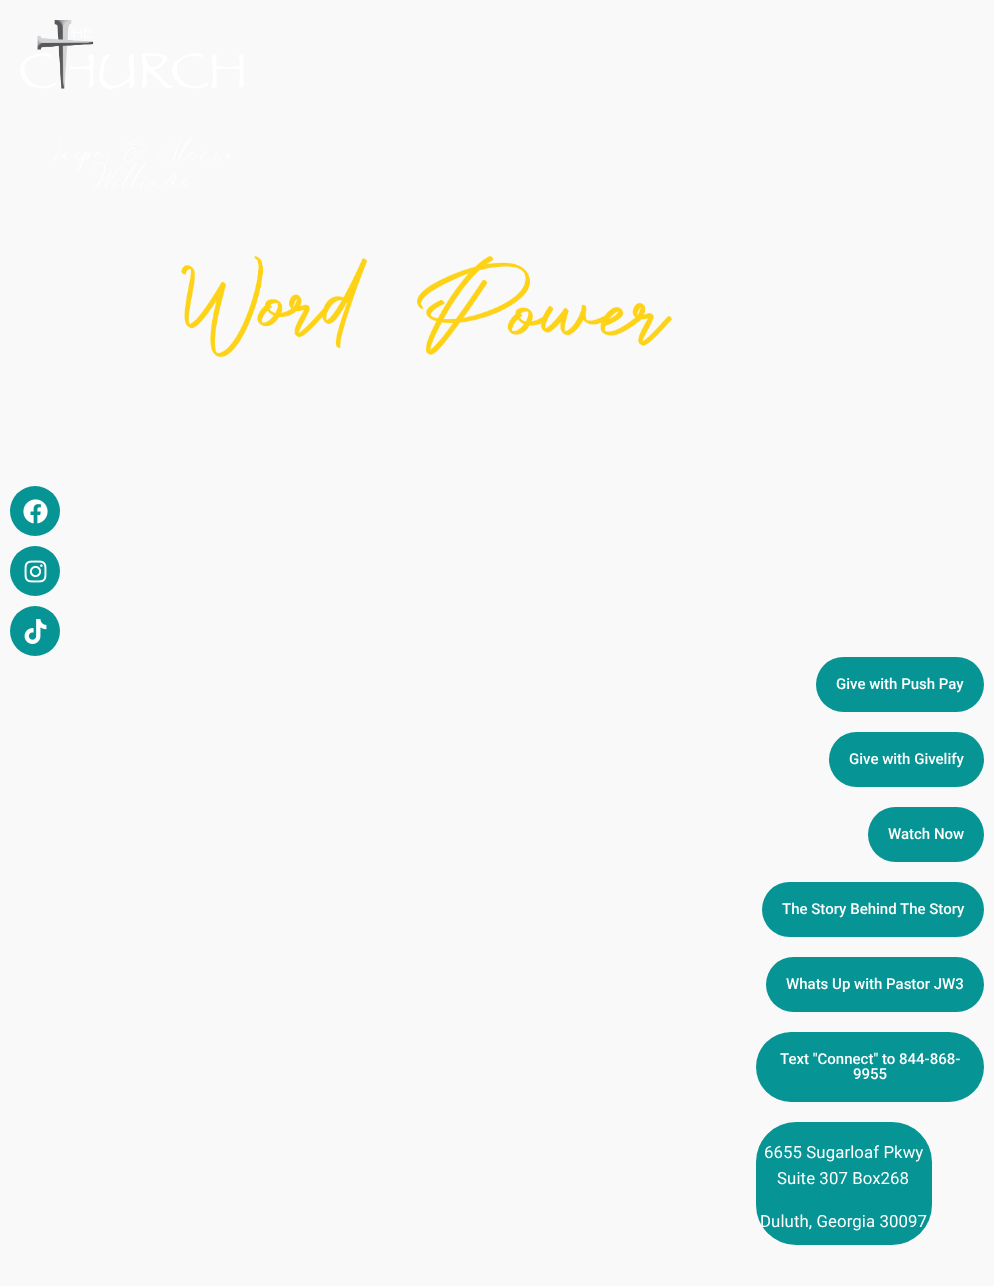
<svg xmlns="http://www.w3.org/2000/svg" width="994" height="1286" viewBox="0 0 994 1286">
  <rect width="100%" height="100%" fill="#f9f9f9"/>
  <image x="20" y="20" width="224" height="69" href="img/1.png"/>
  <image x="53" y="137" width="177" height="52" href="img/2.png"/>
  <circle cx="35" cy="511" r="25" fill="#069494"/>
  <image x="23" y="499" width="25" height="25" href="img/3.png"/>
  <circle cx="35" cy="571" r="25" fill="#069494"/>
  <image x="24" y="560" width="23" height="23" href="img/4.png"/>
  <circle cx="35" cy="631" r="25" fill="#069494"/>
  <image x="24" y="619" width="23" height="25" href="img/5.png"/>
  <image x="181" y="256" width="186" height="101" href="img/6.png"/>
  <image x="417" y="256" width="255" height="99" href="img/7.png"/>
  <rect x="816" y="657" width="168" height="55" rx="27.5" fill="#069494"/>
  <rect x="829" y="732" width="155" height="55" rx="27.5" fill="#069494"/>
  <rect x="868" y="807" width="116" height="55" rx="27.5" fill="#069494"/>
  <rect x="762" y="882" width="222" height="55" rx="27.5" fill="#069494"/>
  <rect x="766" y="957" width="218" height="55" rx="27.5" fill="#069494"/>
  <rect x="756" y="1032" width="228" height="70" rx="35" fill="#069494"/>
  <rect x="756" y="1122" width="176" height="123" rx="40" fill="#069494"/>
  <g font-family="Roboto" font-size="15" font-weight="500" fill="#fff">
    <text x="836" y="689">Give with Push Pay</text>
    <text x="849" y="764">Give with Givelify</text>
    <text x="888" y="839">Watch Now</text>
    <text x="782" y="914">The Story Behind The Story</text>
    <text x="786" y="989">Whats Up with Pastor JW3</text>
    <text x="780" y="1064">Text "Connect" to 844-868-</text>
    <text x="853" y="1079">9955</text>
  </g>
  <g font-family="Roboto" font-size="16.75" letter-spacing="0.1" fill="#fff">
    <text x="764" y="1158">6655 Sugarloaf Pkwy</text>
    <text x="777" y="1184">Suite 307 Box268</text>
    <text x="760" y="1227">Duluth, Georgia 30097</text>
  </g>
</svg>
